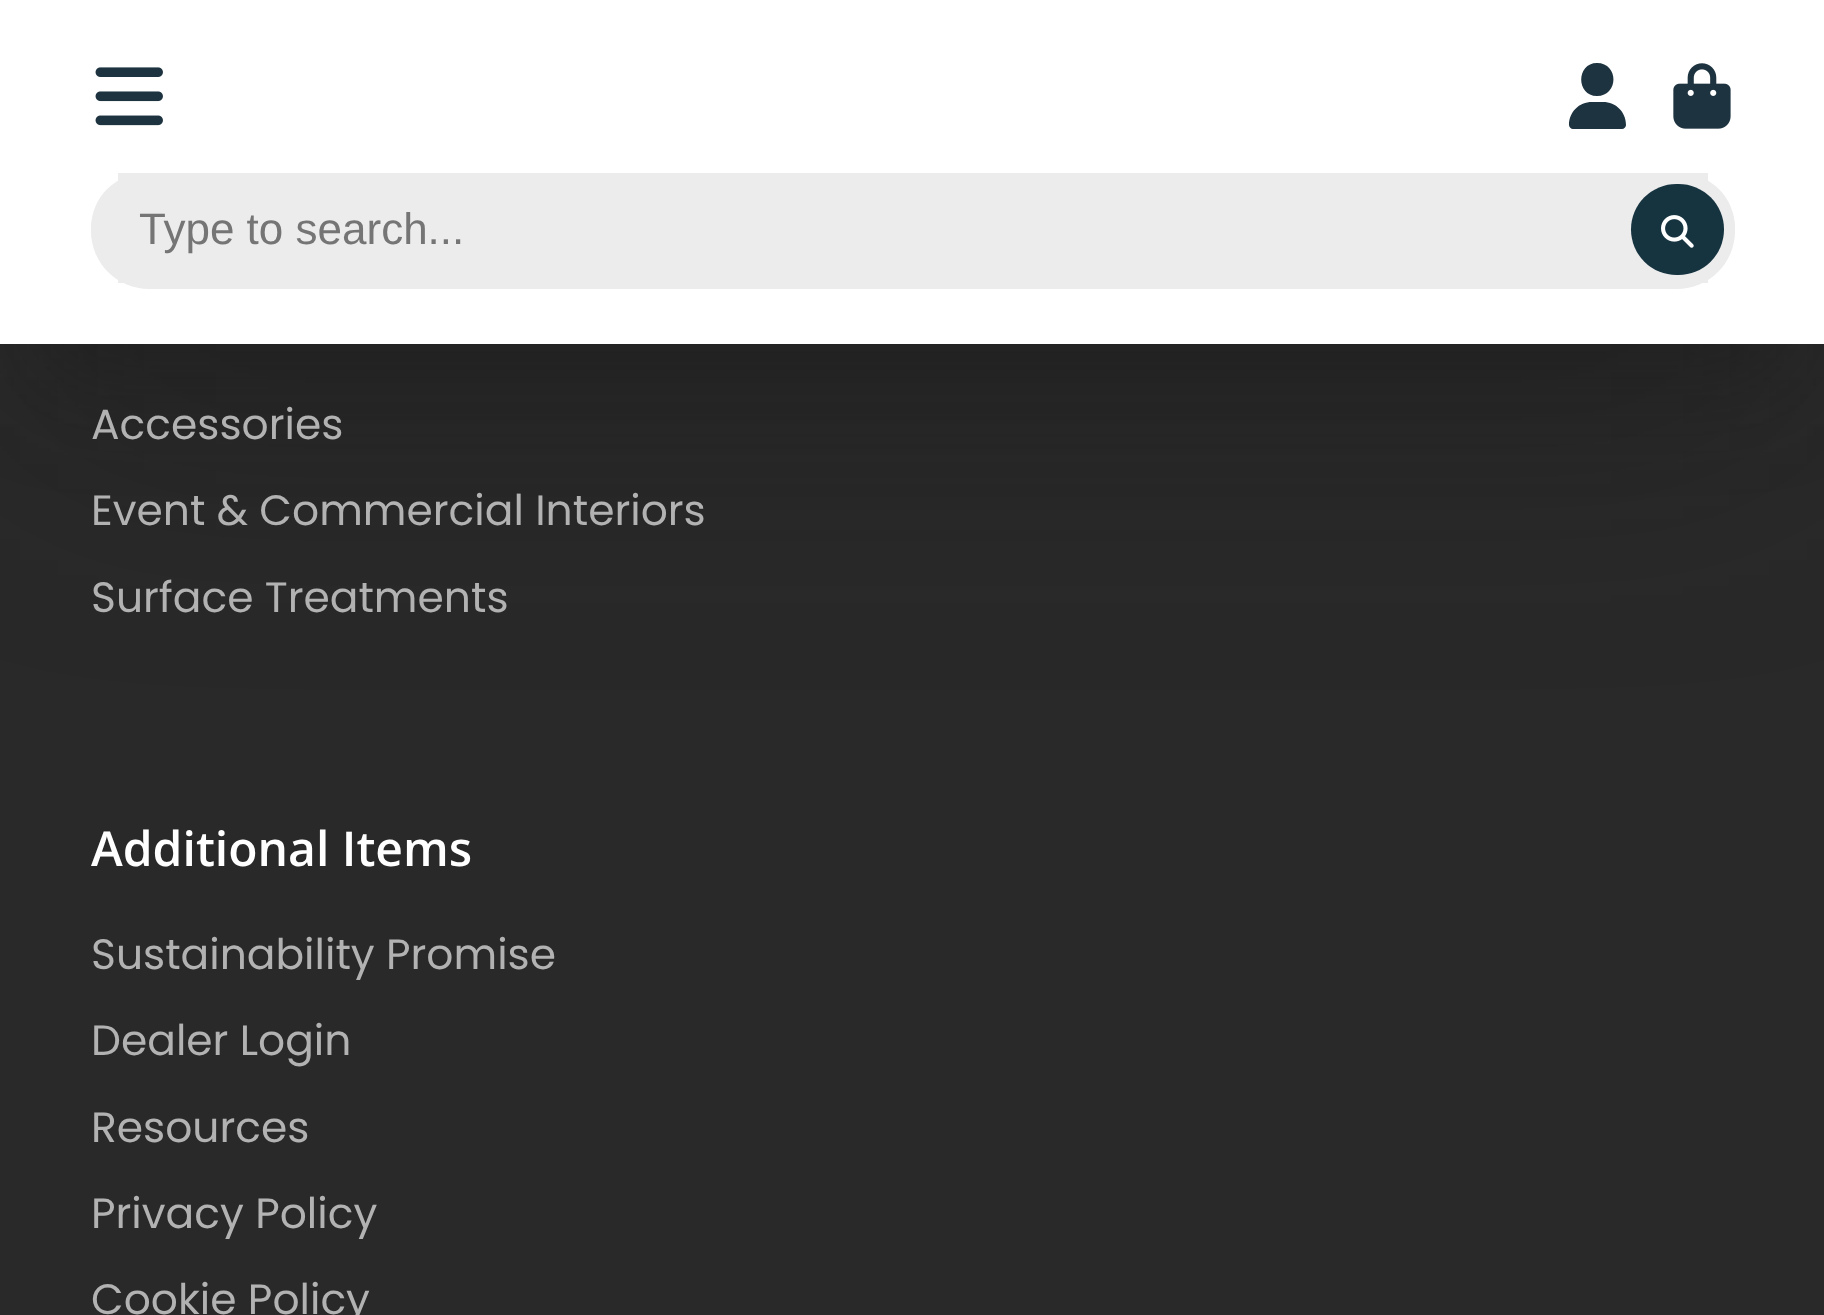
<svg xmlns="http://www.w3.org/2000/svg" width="1824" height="1315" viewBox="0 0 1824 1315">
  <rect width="100%" height="100%" fill="#292929"/>
  <path d="M39 110h1749v267H39z" fill="#1c1c1c66" filter="blur(53px)"/>
  <path d="M39 160h1749v266H39z" fill="#1c1c1c4d" filter="blur(120.5px)"/>
  <path d="M0 0h1824v344H0z" fill="#fff"/>
  <image x="95" y="67" width="68" height="59" href="img/1.png"/>
  <path d="M1597 96C1619 96 1619 63 1597 63C1576 63 1576 96 1597 96ZM1592 102C1579 102 1569 112 1569 125C1569 127 1571 129 1573 129H1622C1624 129 1626 127 1626 125C1626 112 1616 102 1603 102Z" fill="#1d333f"/>
  <image x="1673" y="63" width="58" height="66" href="img/2.png"/>
  <rect x="91" y="173" width="1644" height="110" rx="55" fill="#ececec"/>
  <path d="M118 173h1590v110H118z" fill="#ececec"/>
  <rect x="91" y="173" width="1644" height="116" rx="58" fill="#ececec"/>
  <rect x="1631" y="184" width="93" height="91" rx="45.5" fill="#163340"/>
  <image x="1661" y="215" width="33" height="33" href="img/3.png"/>
  <text x="139" y="244" font-family="Liberation Sans" font-size="44" fill="#757575">Type to search...</text>
  <g font-family="Poppins" font-size="42.4" fill="#b2b2b2">
    <text x="91" y="439">Accessories</text>
    <text x="91" y="525">Event &amp; Commercial Interiors</text>
    <text x="91" y="612">Surface Treatments</text>
  </g>
  <text x="91" y="866" font-family="Open Sans" font-size="48" font-weight="600" fill="#fff">Additional Items</text>
  <g font-family="Poppins" font-size="42.4" fill="#b2b2b2">
    <text x="91" y="969">Sustainability Promise</text>
    <text x="91" y="1055">Dealer Login</text>
    <text x="91" y="1142">Resources</text>
    <text x="91" y="1228">Privacy Policy</text>
    <text x="91" y="1314">Cookie Policy</text>
  </g>
</svg>
